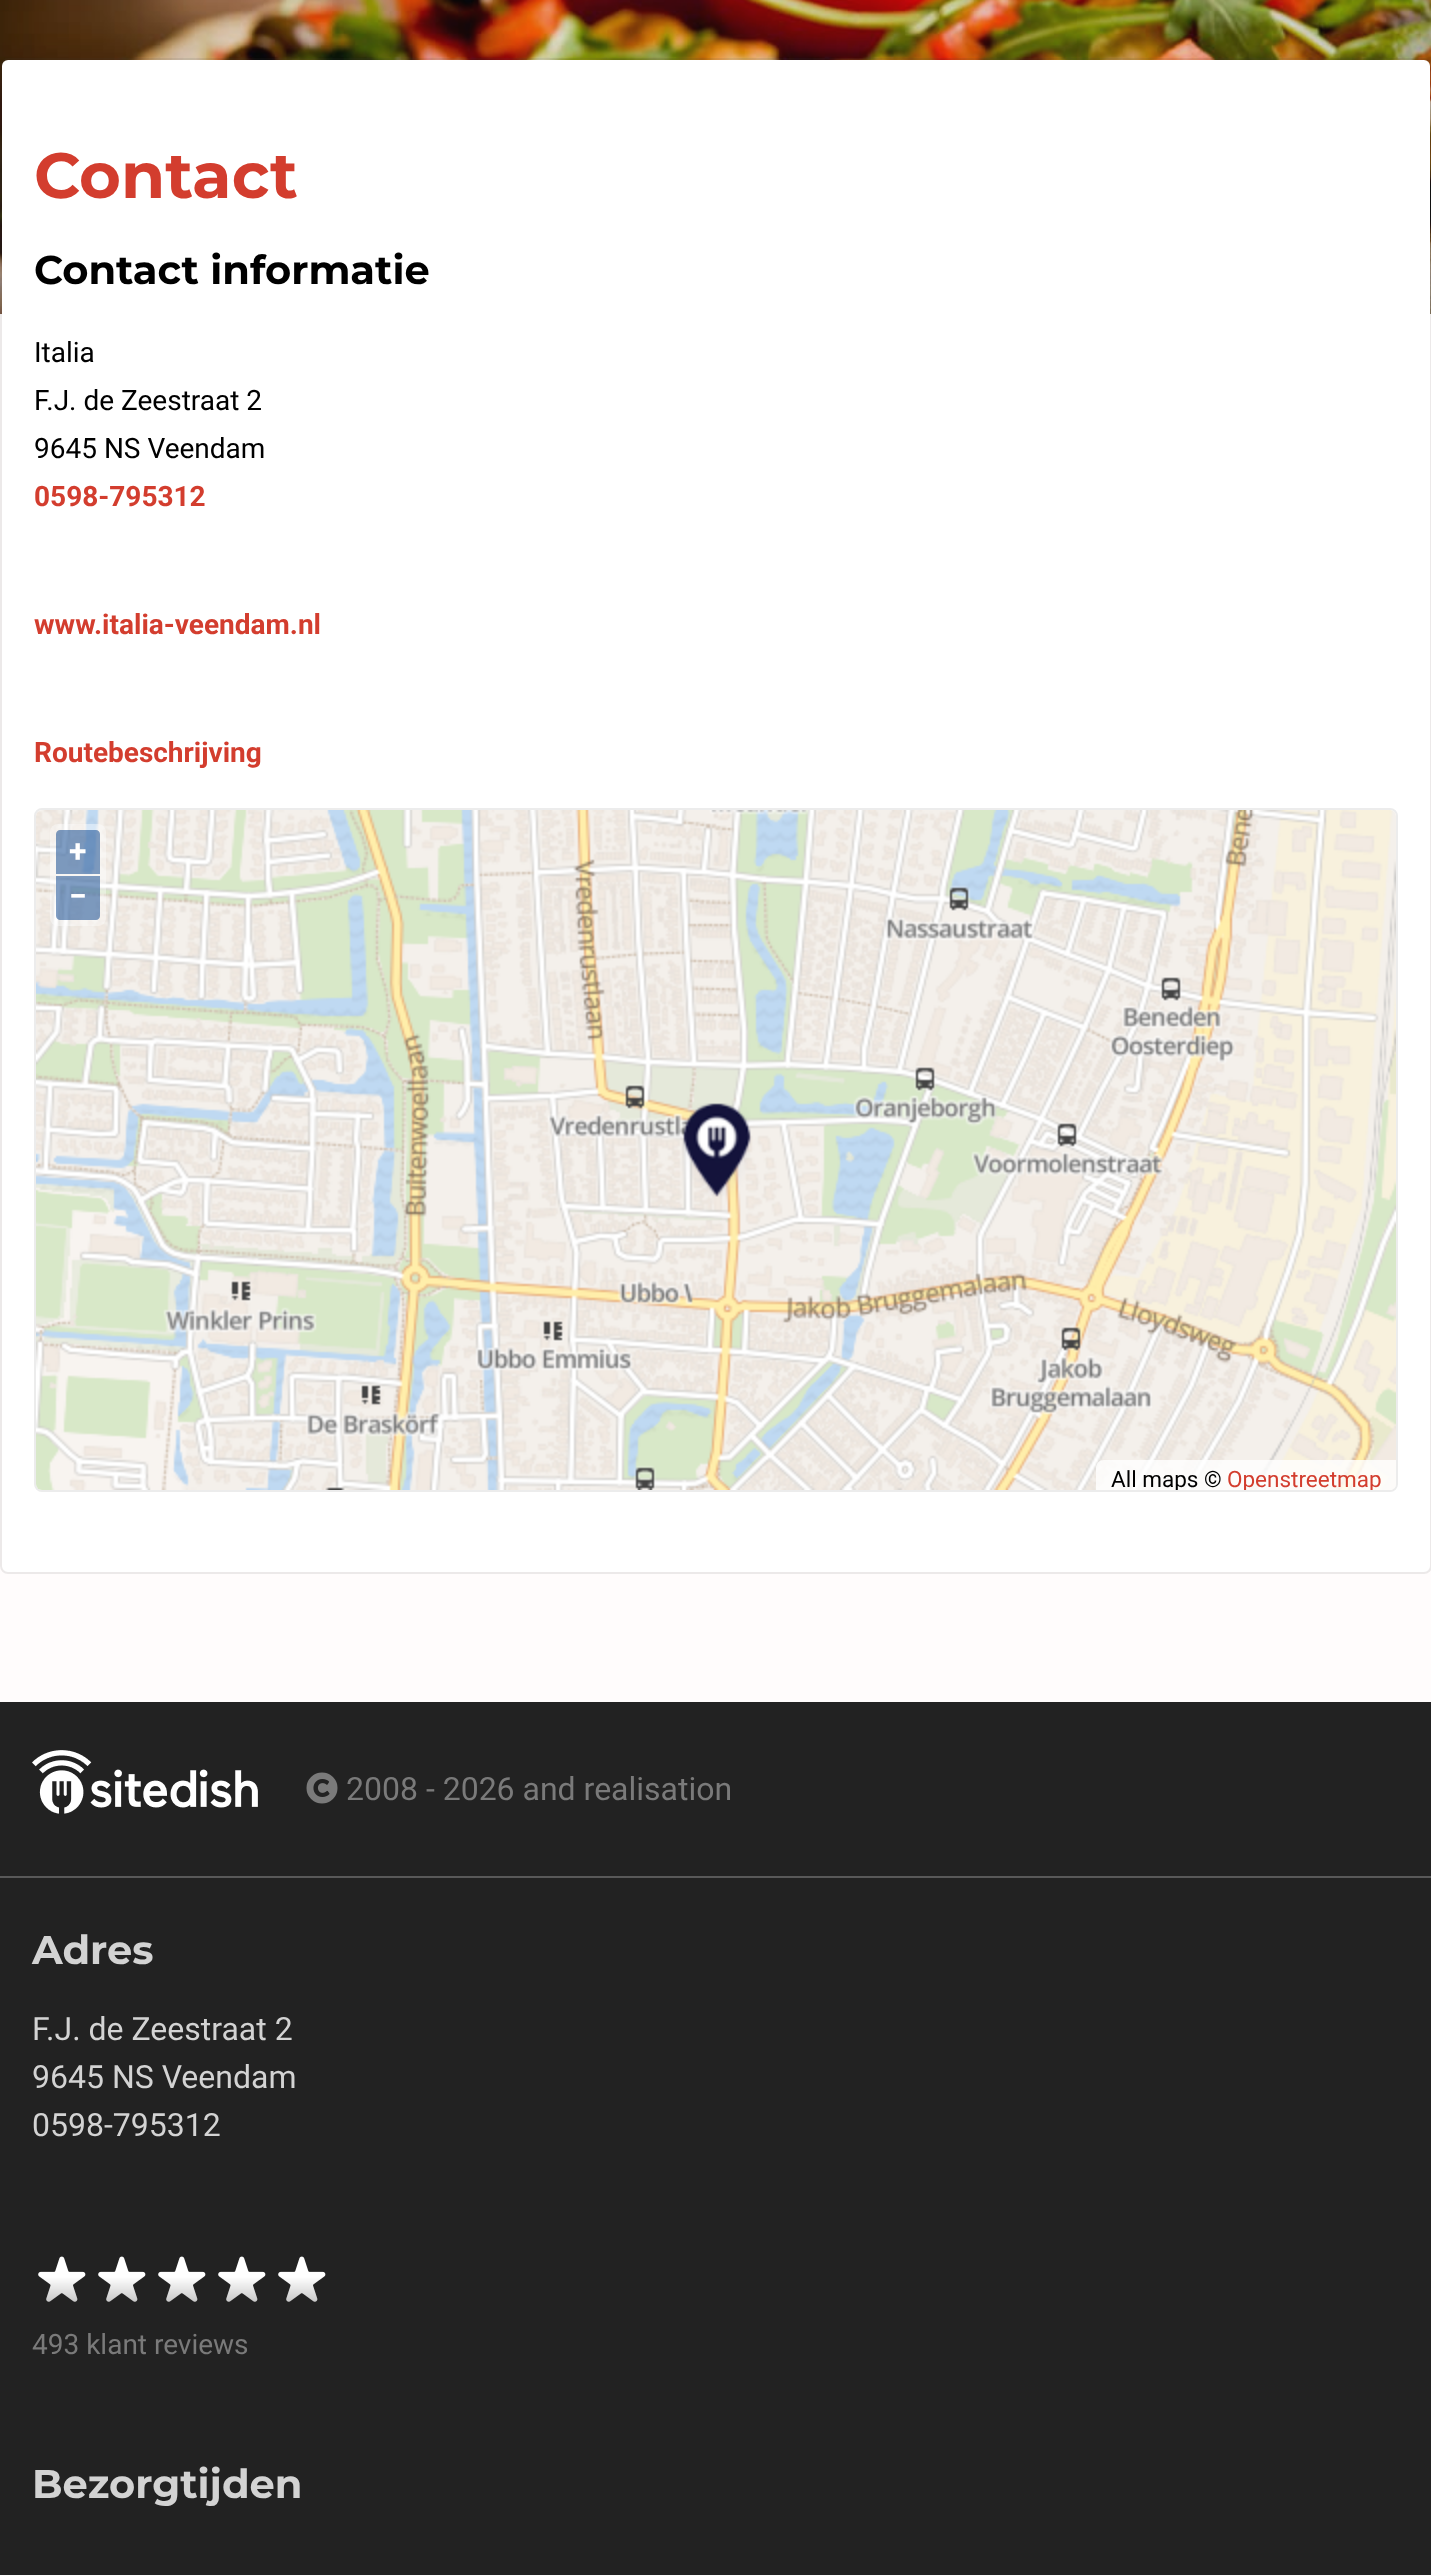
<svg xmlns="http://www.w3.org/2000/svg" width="1431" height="2575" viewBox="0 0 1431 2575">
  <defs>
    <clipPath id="clip1"><path d="M36 810h1360v680H36z"/></clipPath>
  </defs>
  <rect width="100%" height="100%" fill="#fffcfc"/>
  <image x="0" y="0" width="1431" height="314" href="img/1.png"/>
  <rect x="2" y="60" width="1428" height="1512" rx="6" fill="#fff"/>
  <rect x="1" y="59" width="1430" height="1514" rx="7" fill="none" stroke="#4444441a" stroke-width="2"/>
  <rect x="35" y="809" width="1362" height="682" rx="7" fill="none" stroke="#ececec" stroke-width="2"/>
  <image x="36" y="810" width="1360" height="680" href="img/2.png"/>
  <rect x="50" y="824" width="56" height="102" rx="8" fill="#ffffff66"/>
  <path d="M60 830H96C98 830 100 832 100 834V874H56V834C56 832 58 830 60 830Z" fill="#003c8880"/>
  <path d="M56 876H100V916C100 918 98 920 96 920H60C58 920 56 918 56 916Z" fill="#003c8880"/>
  <path d="M1104 1460H1396V1484C1396 1487.5 1393.5 1490 1390 1490H1096V1468C1096 1463.5 1099.5 1460 1104 1460Z" fill="#ffffffcc"/>
  <path d="M0 1702h1431v174H0z" fill="#222"/>
  <path d="M0 1876h1431v2H0z" fill="#595959"/>
  <image x="32" y="1750" width="226" height="64" href="img/3.png"/>
  <image x="306" y="1772" width="32" height="32" href="img/4.png"/>
  <path d="M0 1878h1431v697H0z" fill="#222"/>
  <image x="38" y="2256" width="48" height="46" href="img/5.png"/>
  <image x="98" y="2256" width="48" height="46" href="img/5.png"/>
  <image x="158" y="2256" width="48" height="46" href="img/5.png"/>
  <image x="218" y="2256" width="48" height="46" href="img/5.png"/>
  <image x="278" y="2256" width="48" height="46" href="img/5.png"/>
  <text x="34" y="198" font-family="Montserrat" font-size="64" font-weight="bold" fill="#d33d2e">Contact</text>
  <text x="34" y="284" font-family="Montserrat" font-size="40" font-weight="bold" fill="#000">Contact informatie</text>
  <g font-family="Roboto" font-size="28" fill="#000">
    <text x="34" y="362">Italia</text>
    <text x="34" y="410">F.J. de Zeestraat 2</text>
    <text x="34" y="458">9645 NS Veendam</text>
  </g>
  <g font-family="Roboto" font-size="28" font-weight="bold" fill="#d33d2e">
    <text x="34" y="506">0598-795312</text>
    <text x="34" y="634">www.italia-veendam.nl</text>
    <text x="34" y="762">Routebeschrijving</text>
  </g>
  <g font-family="Roboto" font-size="32" font-weight="bold" fill="#fff">
    <text x="69" y="862">+</text>
    <text x="69" y="907">−</text>
  </g>
  <g clip-path="url(#clip1)">
    <text x="1111" y="1487" font-family="Roboto" font-size="22.5" fill="#000">All maps ©</text>
    <text x="1227" y="1487" font-family="Roboto" font-size="22.5" fill="#d33d2e">Openstreetmap</text>
  </g>
  <text x="346" y="1800" font-family="Roboto" font-size="32" fill="#7a7a7a">2008 - 2026 and realisation</text>
  <text x="32" y="1964" font-family="Montserrat" font-size="40" font-weight="bold" fill="#d3d3d3">Adres</text>
  <g font-family="Roboto" font-size="32" fill="#d3d3d3">
    <text x="32" y="2040">F.J. de Zeestraat 2</text>
    <text x="32" y="2088">9645 NS Veendam</text>
    <text x="32" y="2136">0598-795312</text>
  </g>
  <text x="32" y="2354" font-family="Roboto" font-size="28" fill="#7a7a7a">493 klant reviews</text>
  <text x="32" y="2498" font-family="Montserrat" font-size="40" font-weight="bold" fill="#d3d3d3">Bezorgtijden</text>
</svg>
